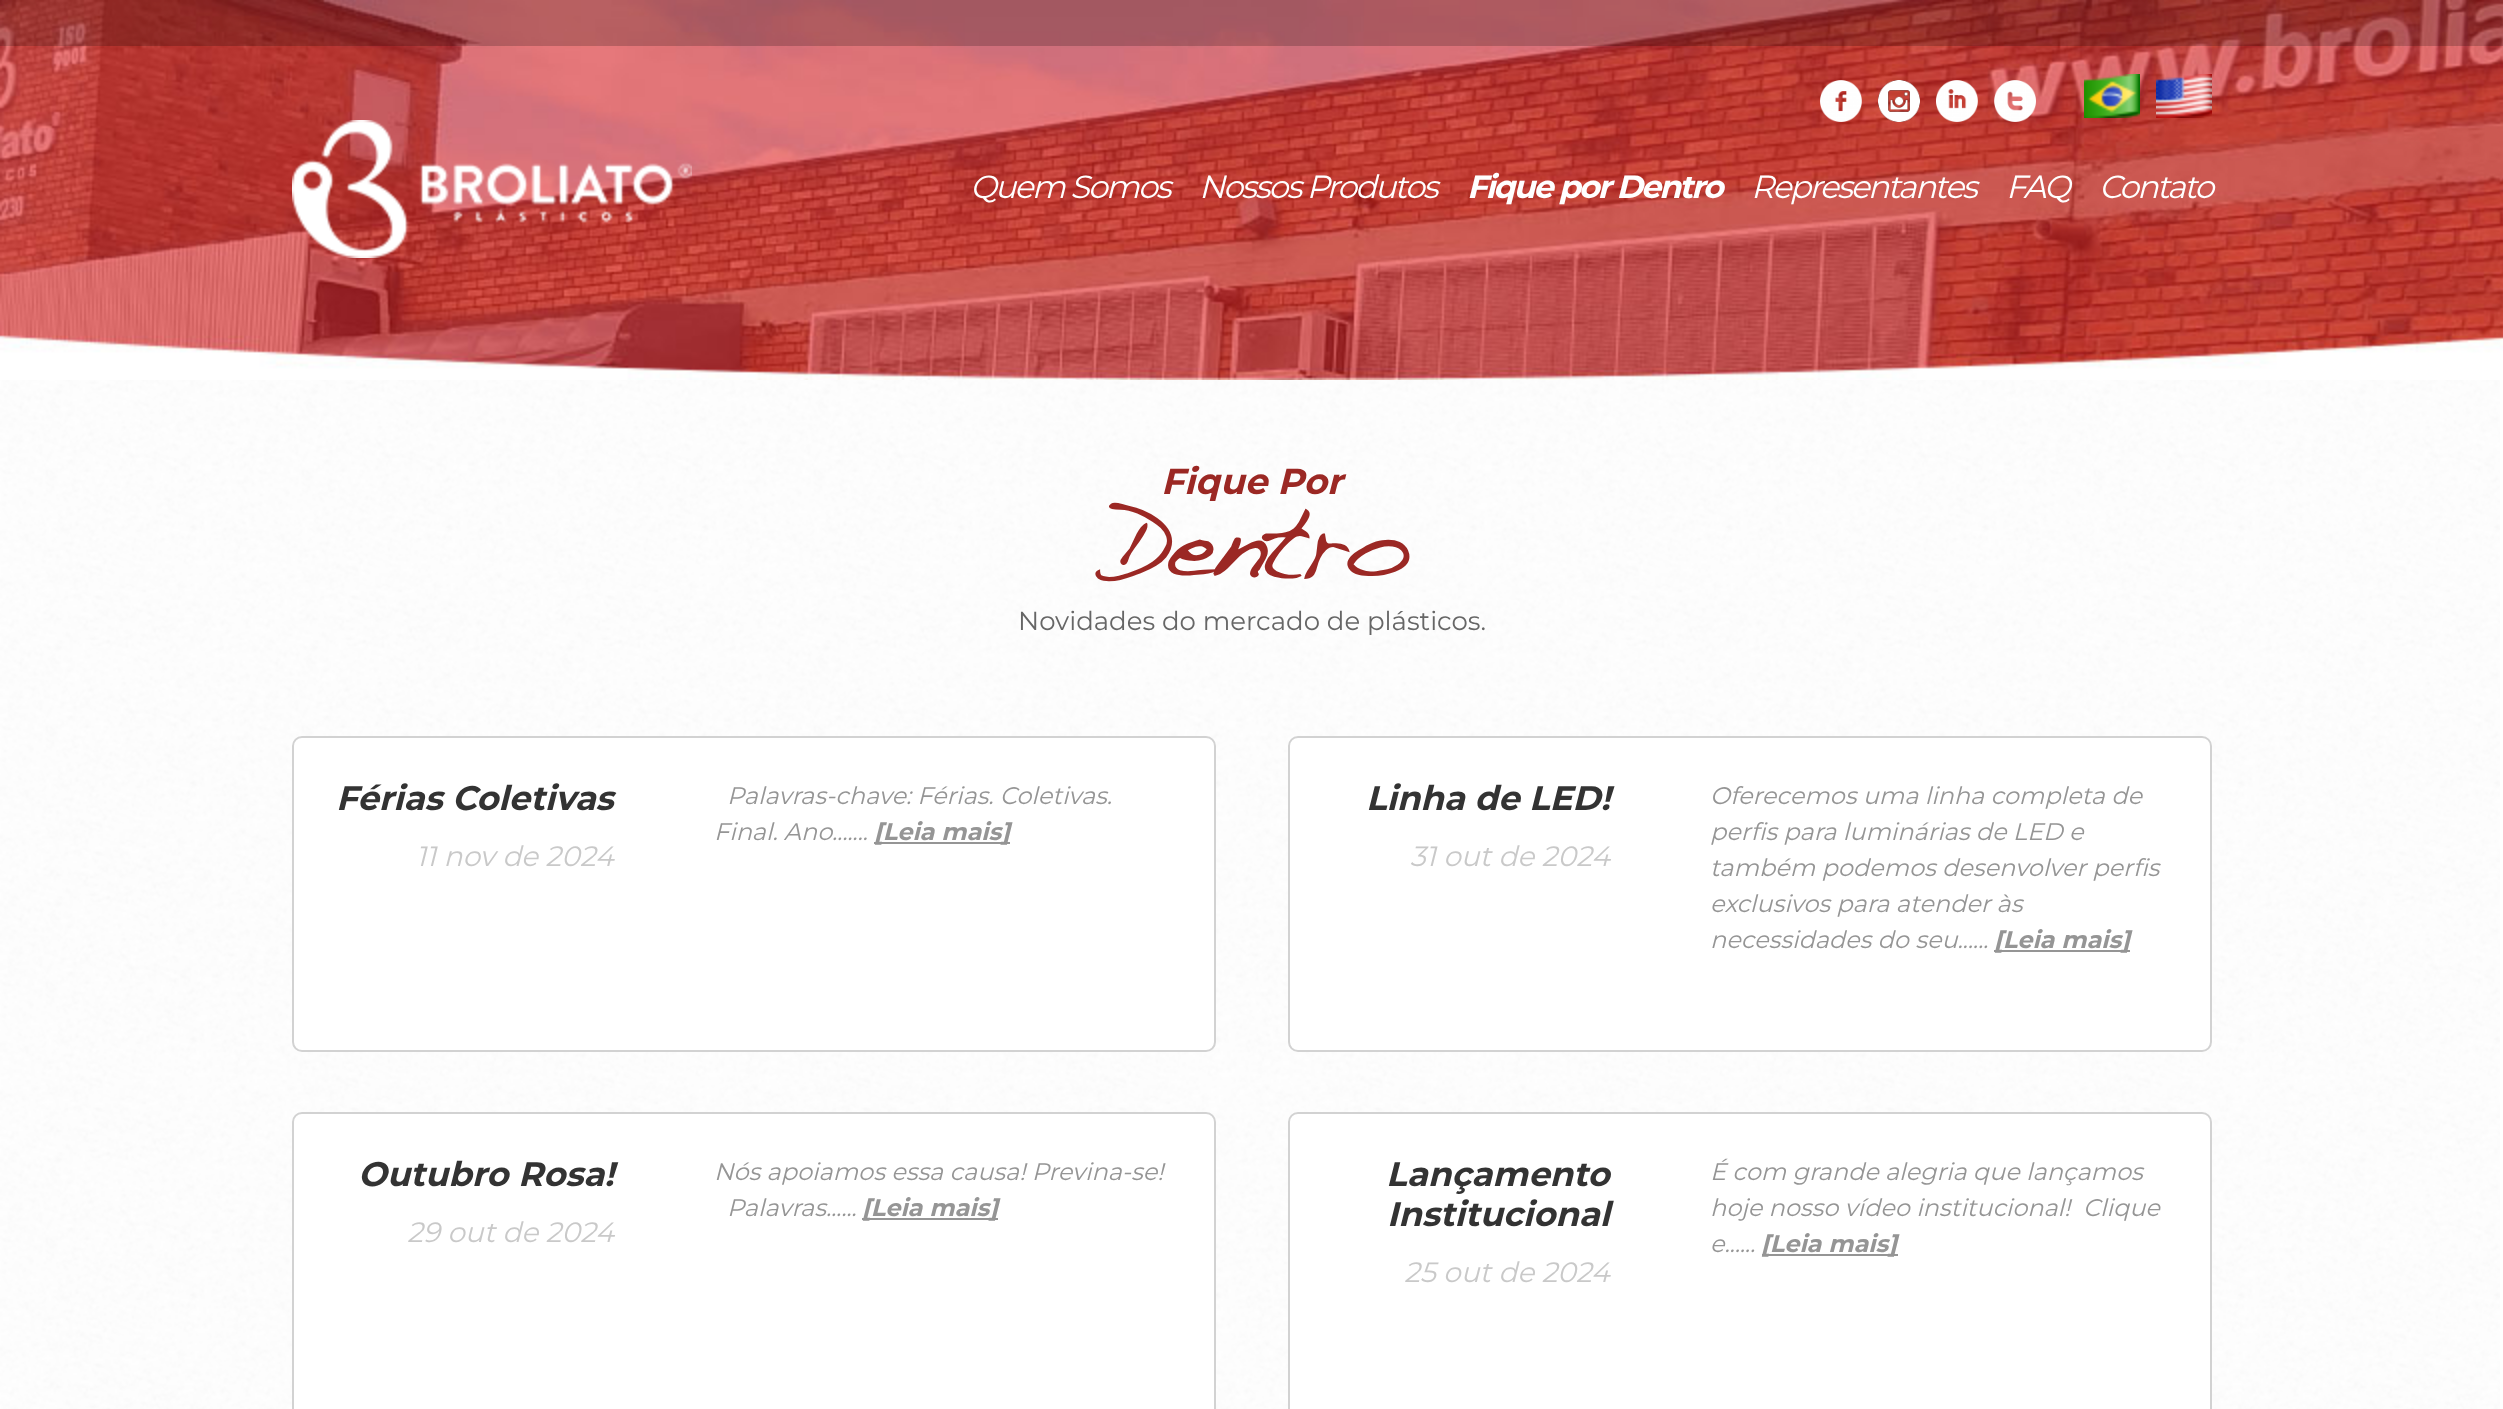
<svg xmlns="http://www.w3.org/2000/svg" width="2503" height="1409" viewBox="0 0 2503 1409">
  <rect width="100%" height="100%" fill="#fff"/>
  <image x="0" y="380" width="2500" height="1029" href="img/1.png"/>
  <image x="0" y="0" width="2503" height="380" href="img/2.png"/>
  <path d="M0 0h2503v46H0z" fill="#00000033"/>
  <image x="292" y="120" width="400" height="138" href="img/3.png"/>
  <image x="1820" y="80" width="42" height="42" href="img/4.png"/>
  <image x="1878" y="80" width="42" height="42" href="img/5.png"/>
  <image x="1936" y="80" width="42" height="42" href="img/6.png"/>
  <image x="1994" y="80" width="42" height="42" href="img/7.png"/>
  <image x="2084" y="74" width="56" height="44" href="img/8.png"/>
  <image x="2156" y="74" width="56" height="44" href="img/9.png"/>
  <rect x="293" y="737" width="922" height="314" rx="9" fill="#fff" stroke="#d2d2d2" stroke-width="2"/>
  <path d="M874 842h136v2H874z" fill="#959595"/>
  <rect x="1289" y="737" width="922" height="314" rx="9" fill="#fff" stroke="#d2d2d2" stroke-width="2"/>
  <path d="M1994 950h136v2H1994z" fill="#959595"/>
  <rect x="293" y="1113" width="922" height="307" rx="9" fill="#fff" stroke="#d2d2d2" stroke-width="2"/>
  <path d="M862 1218h136v2H862z" fill="#959595"/>
  <rect x="1289" y="1113" width="922" height="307" rx="9" fill="#fff" stroke="#d2d2d2" stroke-width="2"/>
  <path d="M1762 1254h136v2H1762z" fill="#959595"/>
  <g font-family="Montserrat" font-size="32" font-style="italic" letter-spacing="-2" fill="#fff">
    <text x="970" y="198">Quem Somos</text>
    <text x="1199" y="198">Nossos Produtos</text>
  </g>
  <text x="1467" y="198" font-family="Montserrat" font-size="32" font-weight="bold" font-style="italic" letter-spacing="-2" fill="#fff">Fique por Dentro</text>
  <g font-family="Montserrat" font-size="32" font-style="italic" letter-spacing="-2" fill="#fff">
    <text x="1751" y="198">Representantes</text>
    <text x="2006" y="198">FAQ</text>
    <text x="2099" y="198">Contato</text>
  </g>
  <text x="1161" y="494" font-family="Montserrat" font-size="36" font-weight="bold" font-style="italic" fill="#9b2824">Fique Por</text>
  <text x="1101" y="576" font-family="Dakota" font-size="90" font-weight="100" letter-spacing="-6" fill="#9b2824">Dentro</text>
  <text x="1018" y="630" font-family="Montserrat" font-size="26" fill="#666">Novidades do mercado de plásticos.</text>
  <text x="336" y="810" font-family="Montserrat" font-size="34" font-weight="bold" font-style="italic" fill="#333">Férias Coletivas</text>
  <text x="416" y="866" font-family="Montserrat" font-size="28" font-style="italic" fill="#c9c9c9">11 nov de 2024</text>
  <g font-family="Montserrat" font-size="24" font-style="italic" fill="#959595">
    <text x="727" y="804">Palavras-chave: Férias. Coletivas.</text>
    <text x="714" y="840">Final. Ano.......</text>
  </g>
  <text x="874" y="840" font-family="Montserrat" font-size="24" font-weight="bold" font-style="italic" fill="#959595">[Leia mais]</text>
  <text x="1366" y="810" font-family="Montserrat" font-size="34" font-weight="bold" font-style="italic" fill="#333">Linha de LED!</text>
  <text x="1410" y="866" font-family="Montserrat" font-size="28" font-style="italic" fill="#c9c9c9">31 out de 2024</text>
  <g font-family="Montserrat" font-size="24" font-style="italic" fill="#959595">
    <text x="1710" y="804">Oferecemos uma linha completa de</text>
    <text x="1710" y="840">perfis para luminárias de LED e</text>
    <text x="1710" y="876">também podemos desenvolver perfis</text>
    <text x="1710" y="912">exclusivos para atender às</text>
    <text x="1710" y="948">necessidades do seu......</text>
  </g>
  <text x="1994" y="948" font-family="Montserrat" font-size="24" font-weight="bold" font-style="italic" fill="#959595">[Leia mais]</text>
  <text x="358" y="1186" font-family="Montserrat" font-size="34" font-weight="bold" font-style="italic" fill="#333">Outubro Rosa!</text>
  <text x="407" y="1242" font-family="Montserrat" font-size="28" font-style="italic" fill="#c9c9c9">29 out de 2024</text>
  <g font-family="Montserrat" font-size="24" font-style="italic" fill="#959595">
    <text x="714" y="1180">Nós apoiamos essa causa! Previna-se!</text>
    <text x="727" y="1216">Palavras......</text>
  </g>
  <text x="862" y="1216" font-family="Montserrat" font-size="24" font-weight="bold" font-style="italic" fill="#959595">[Leia mais]</text>
  <g font-family="Montserrat" font-size="34" font-weight="bold" font-style="italic" fill="#333">
    <text x="1386" y="1186">Lançamento</text>
    <text x="1387" y="1226">Institucional</text>
  </g>
  <text x="1404" y="1282" font-family="Montserrat" font-size="28" font-style="italic" fill="#c9c9c9">25 out de 2024</text>
  <g font-family="Montserrat" font-size="24" font-style="italic" fill="#959595">
    <text x="1710" y="1180">É com grande alegria que lançamos</text>
    <text x="1710" y="1216">hoje nosso vídeo institucional!</text>
    <text x="2083" y="1216">Clique</text>
    <text x="1710" y="1252">e......</text>
  </g>
  <text x="1761" y="1252" font-family="Montserrat" font-size="24" font-weight="bold" font-style="italic" fill="#959595">[Leia mais]</text>
</svg>
